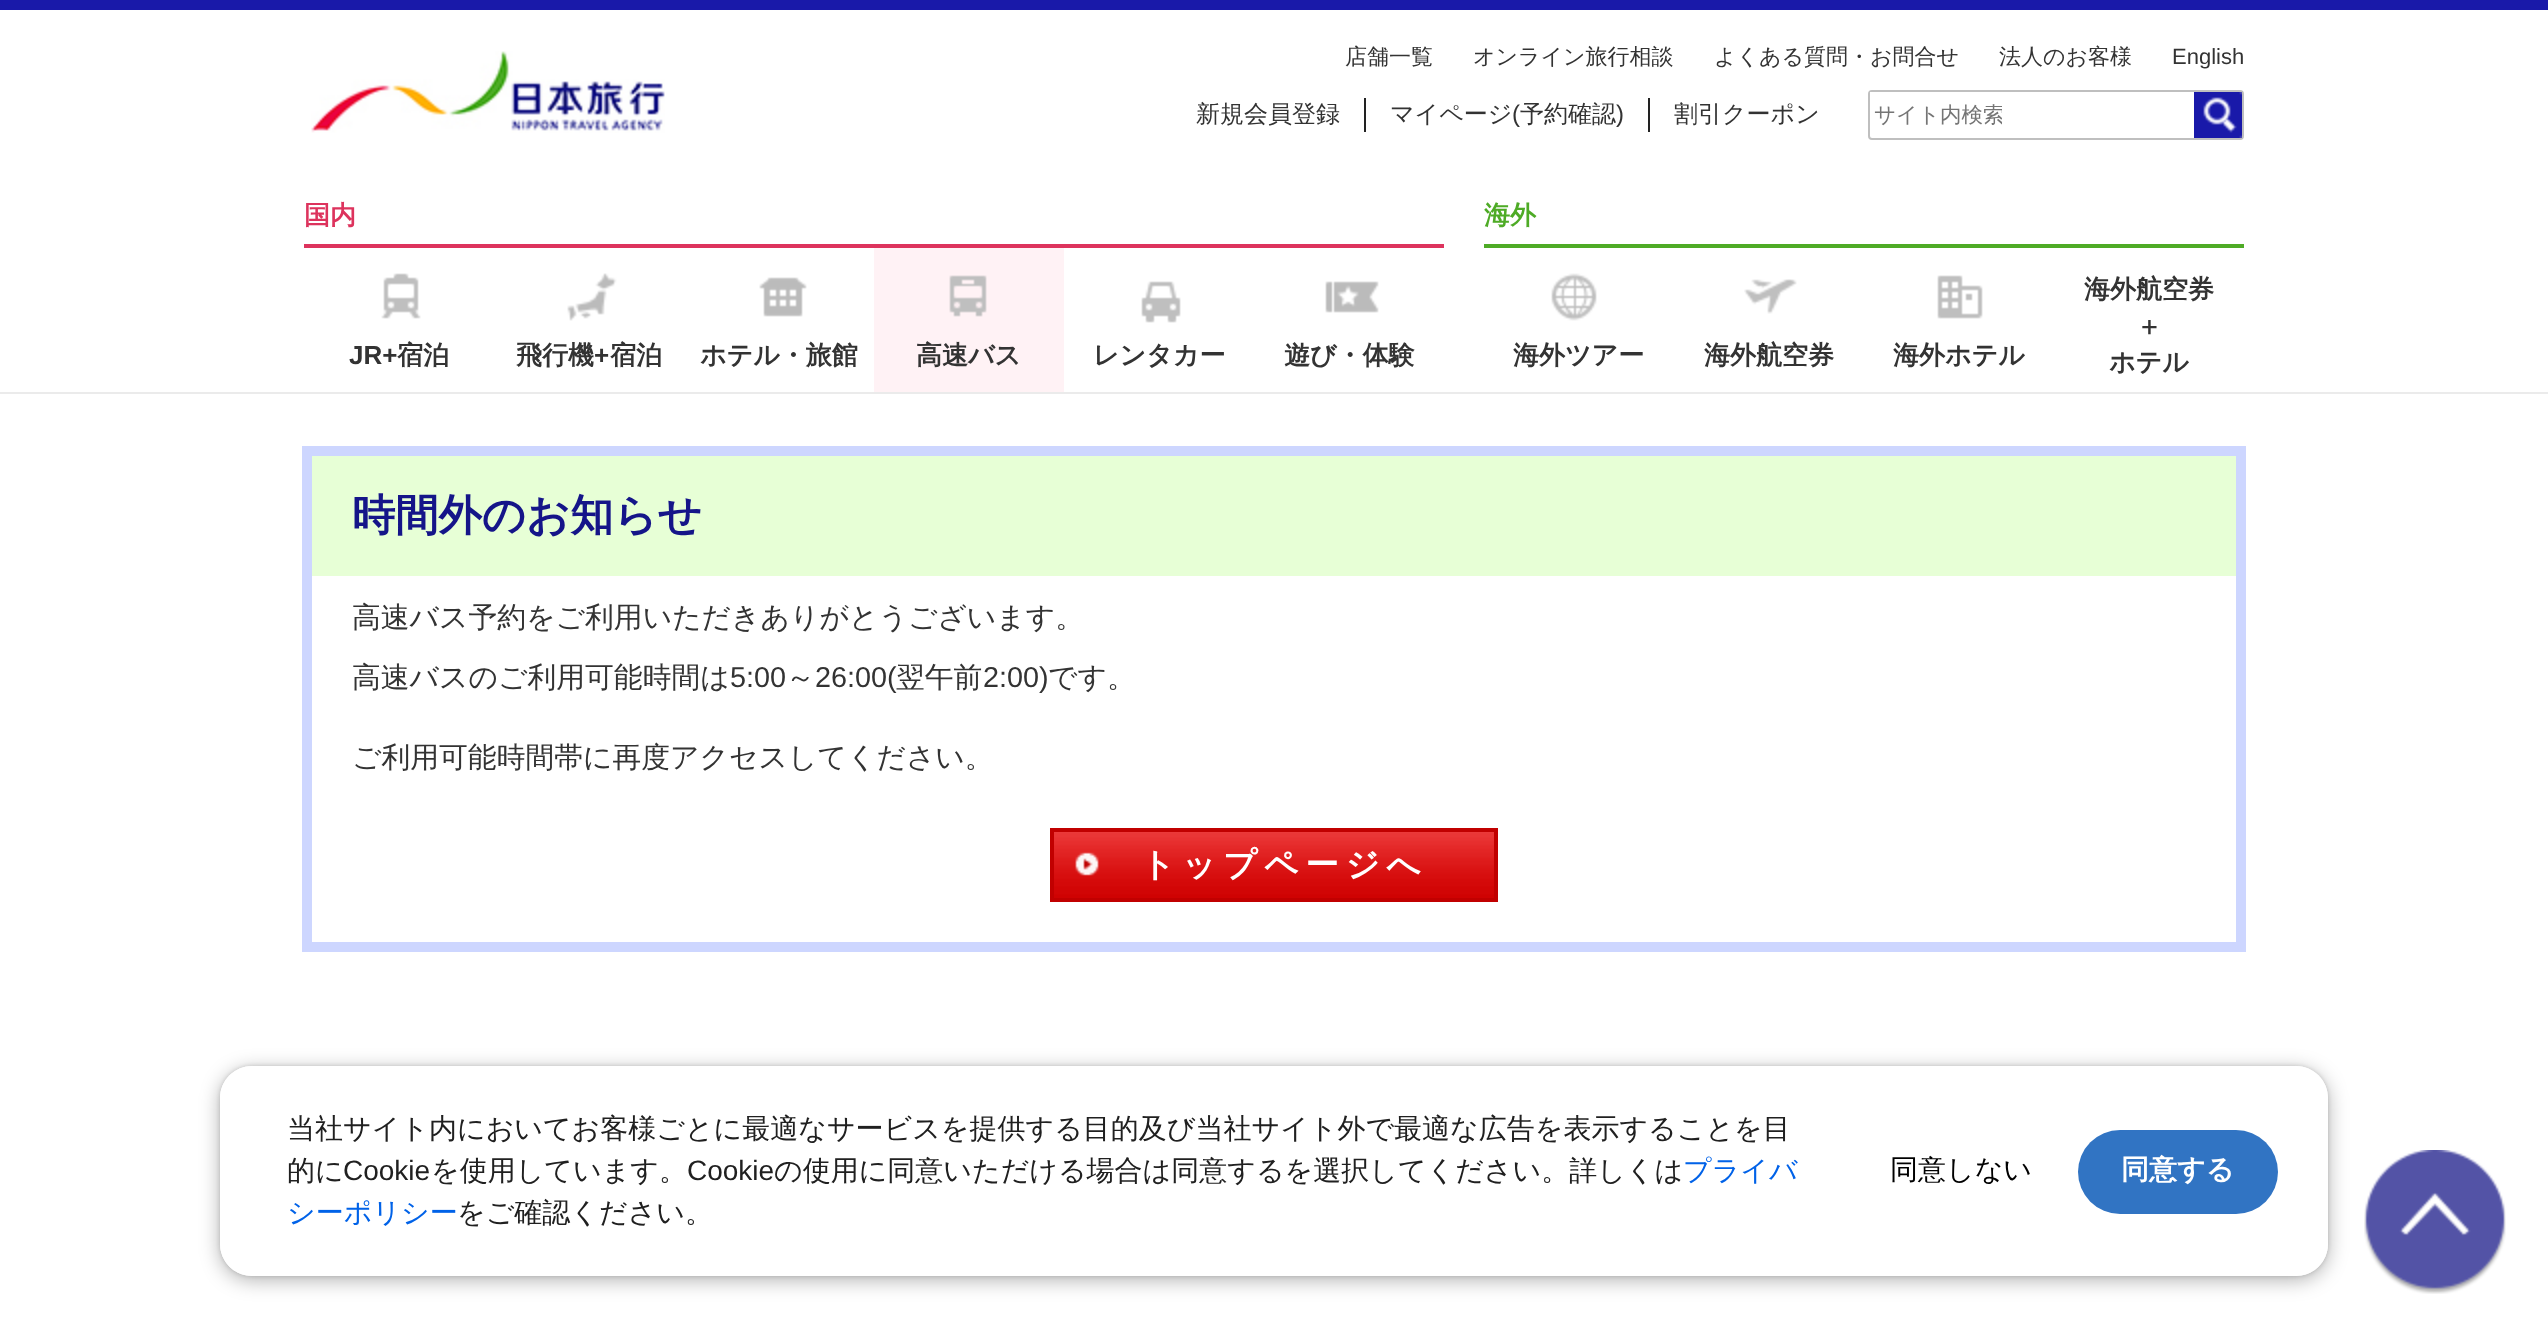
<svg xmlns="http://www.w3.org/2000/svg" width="2548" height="1335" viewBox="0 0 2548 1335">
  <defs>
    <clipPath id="clip1"><path d="M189 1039H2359V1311H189ZM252 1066H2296C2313.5 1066 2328 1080.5 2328 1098V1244C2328 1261.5 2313.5 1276 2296 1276H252C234.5 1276 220 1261.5 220 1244V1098C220 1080.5 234.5 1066 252 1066Z" clip-rule="evenodd"/></clipPath>
    <clipPath id="clip2"><path d="M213 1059H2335V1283H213ZM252 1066H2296C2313.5 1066 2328 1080.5 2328 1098V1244C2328 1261.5 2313.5 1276 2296 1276H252C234.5 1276 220 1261.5 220 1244V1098C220 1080.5 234.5 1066 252 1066Z" clip-rule="evenodd"/></clipPath>
    <clipPath id="clip3"><path d="M1874 102h128v28H1874z"/></clipPath>
  </defs>
  <rect width="100%" height="100%" fill="#fff"/>
  <path d="M0 0h2548v10H0z" fill="#1919a9"/>
  <path d="M0 392h2548v2H0z" fill="#ebebeb"/>
  <image x="311" y="51" width="354" height="82" href="img/1.png"/>
  <path d="M1364 98h2v34H1364z" fill="#222"/>
  <path d="M1648 98h2v34H1648z" fill="#222"/>
  <rect x="1869" y="91" width="374" height="48" rx="3" fill="none" stroke="#bfbfbf" stroke-width="2"/>
  <path d="M1870 92h2v2H1870z" fill="#fff"/>
  <image x="2194" y="92" width="48" height="46" href="img/2.png"/>
  <path d="M304 244h1140v4H304z" fill="#dd335d"/>
  <image x="381" y="273" width="40" height="46" href="img/3.png"/>
  <image x="567" y="273" width="50" height="48" href="img/4.png"/>
  <image x="759" y="277" width="48" height="40" href="img/5.png"/>
  <path d="M874 248h190v144H874z" fill="#fff2f5"/>
  <image x="949" y="275" width="38" height="42" href="img/6.png"/>
  <image x="1141" y="281" width="40" height="42" href="img/7.png"/>
  <image x="1325" y="281" width="54" height="32" href="img/8.png"/>
  <path d="M1484 244h760v4H1484z" fill="#4eab26"/>
  <image x="1551" y="273" width="46" height="48" href="img/9.png"/>
  <image x="1744" y="279" width="53" height="35" href="img/10.png"/>
  <image x="1937" y="275" width="46" height="44" href="img/11.png"/>
  <path d="M307 451h1934v496H307z" fill="none" stroke="#cdd6ff" stroke-width="10"/>
  <path d="M312 456h1924v120H312z" fill="#e7ffd6"/>
  <image x="1054" y="832" width="440" height="66" href="img/12.png"/>
  <path d="M1052 830h444v70H1052z" fill="none" stroke="#c10000" stroke-width="4"/>
  <image x="2364" y="1150" width="142" height="144" href="img/13.png"/>
  <g clip-path="url(#clip1)">
    <rect x="220" y="1070" width="2108" height="210" rx="32" fill="#0000004d" filter="blur(10px)"/>
  </g>
  <g clip-path="url(#clip2)">
    <rect x="220" y="1066" width="2108" height="210" rx="32" fill="#00000026" filter="blur(2px)"/>
  </g>
  <rect x="220" y="1066" width="2108" height="210" rx="32" fill="#ffffffc7"/>
  <rect x="221" y="1067" width="2106" height="208" rx="31" fill="none" stroke="#ffffff80" stroke-width="2"/>
  <rect x="2078" y="1130" width="200" height="84" rx="42" fill="#3174c3"/>
  <g font-family="WenQuanYi Zen Hei" font-size="22" font-weight="500" fill="#333">
    <text x="1345" y="64">店舗一覧</text>
    <text x="1473" y="64">オンライン旅行相談</text>
    <text x="1714" y="64">よくある質問・お問合せ</text>
    <text x="1999" y="64">法人のお客様</text>
  </g>
  <text x="2172" y="64" font-family="Liberation Sans" font-size="22" fill="#333">English</text>
  <g font-family="WenQuanYi Zen Hei" font-size="24" font-weight="500" fill="#333">
    <text x="1196" y="122">新規会員登録</text>
    <text x="1390" y="122">マイページ</text>
  </g>
  <text x="1512" y="122" font-family="Liberation Sans" font-size="24" fill="#333">(</text>
  <text x="1520" y="122" font-family="WenQuanYi Zen Hei" font-size="24" font-weight="500" fill="#333">予約確認</text>
  <text x="1616" y="122" font-family="Liberation Sans" font-size="24" fill="#333">)</text>
  <text x="1674" y="122" font-family="WenQuanYi Zen Hei" font-size="24" font-weight="500" fill="#333">割引クーポン</text>
  <g clip-path="url(#clip3)">
    <text x="1874" y="122" font-family="WenQuanYi Zen Hei" font-size="21.5" font-weight="500" fill="#757575">サイト内検索</text>
  </g>
  <text x="304" y="224" font-family="WenQuanYi Zen Hei" font-size="26" font-weight="bold" fill="#dd335d">国内</text>
  <text x="349" y="364" font-family="Liberation Sans" font-size="26" font-weight="bold" fill="#333">JR+</text>
  <g font-family="WenQuanYi Zen Hei" font-size="26" font-weight="bold" fill="#333">
    <text x="397" y="364">宿泊</text>
    <text x="516" y="364">飛行機</text>
  </g>
  <text x="594" y="364" font-family="Liberation Sans" font-size="26" font-weight="bold" fill="#333">+</text>
  <g font-family="WenQuanYi Zen Hei" font-size="26" font-weight="bold" fill="#333">
    <text x="610" y="364">宿泊</text>
    <text x="700" y="364">ホテル・旅館</text>
    <text x="916" y="364">高速バス</text>
    <text x="1093" y="364">レンタカー</text>
    <text x="1284" y="364">遊び・体験</text>
  </g>
  <text x="1484" y="224" font-family="WenQuanYi Zen Hei" font-size="26" font-weight="bold" fill="#4eab26">海外</text>
  <g font-family="WenQuanYi Zen Hei" font-size="26" font-weight="bold" fill="#333">
    <text x="1513" y="364">海外ツアー</text>
    <text x="1704" y="364">海外航空券</text>
    <text x="1893" y="364">海外ホテル</text>
    <text x="2084" y="298">海外航空券</text>
    <text x="2136" y="335">＋</text>
    <text x="2109" y="371">ホテル</text>
  </g>
  <text x="352" y="530" font-family="WenQuanYi Zen Hei" font-size="43.25" font-weight="bold" fill="#151589">時間外のお知らせ</text>
  <g font-family="WenQuanYi Zen Hei" font-size="28.8" font-weight="500" fill="#333">
    <text x="352" y="627">高速バス予約をご利用いただきありがとうございます。</text>
    <text x="352" y="687">高速バスのご利用可能時間は</text>
  </g>
  <text x="730" y="687" font-family="Liberation Sans" font-size="28.8" fill="#333">5:00</text>
  <text x="786" y="687" font-family="WenQuanYi Zen Hei" font-size="28.8" font-weight="500" fill="#333">～</text>
  <text x="815" y="687" font-family="Liberation Sans" font-size="28.8" fill="#333">26:00(</text>
  <text x="896" y="687" font-family="WenQuanYi Zen Hei" font-size="28.8" font-weight="500" fill="#333">翌午前</text>
  <text x="983" y="687" font-family="Liberation Sans" font-size="28.8" fill="#333">2:00)</text>
  <g font-family="WenQuanYi Zen Hei" font-size="28.8" font-weight="500" fill="#333">
    <text x="1048" y="687">です。</text>
    <text x="352" y="767">ご利用可能時間帯に再度アクセスしてください。</text>
  </g>
  <text x="1141" y="876" font-family="WenQuanYi Zen Hei" font-size="33.5" font-weight="bold" letter-spacing="6.75" fill="#fff">トップページへ</text>
  <g font-family="WenQuanYi Zen Hei" font-size="28" font-weight="500" fill="#202020">
    <text x="287" y="1138">当社サイト内においてお客様ごとに最適なサービスを提供する目的及び当社サイト外で最適な広告を表示することを目</text>
    <text x="287" y="1180">的に</text>
  </g>
  <text x="343" y="1180" font-family="Liberation Sans" font-size="28" fill="#202020">Cookie</text>
  <text x="431" y="1180" font-family="WenQuanYi Zen Hei" font-size="28" font-weight="500" fill="#202020">を使用しています。</text>
  <text x="687" y="1180" font-family="Liberation Sans" font-size="28" fill="#202020">Cookie</text>
  <text x="774" y="1180" font-family="WenQuanYi Zen Hei" font-size="28" font-weight="500" fill="#202020">の使用に同意いただける場合は同意するを選択してください。詳しくは</text>
  <g font-family="WenQuanYi Zen Hei" font-size="28" font-weight="500" fill="#0062e8">
    <text x="1683" y="1180">プライバ</text>
    <text x="287" y="1222">シーポリシー</text>
  </g>
  <text x="457" y="1222" font-family="WenQuanYi Zen Hei" font-size="28" font-weight="500" fill="#202020">をご確認ください。</text>
  <text x="1890" y="1179" font-family="WenQuanYi Zen Hei" font-size="28" font-weight="500" fill="#000">同意しない</text>
  <text x="2121" y="1179" font-family="WenQuanYi Zen Hei" font-size="28" font-weight="bold" fill="#fff">同意する</text>
</svg>
